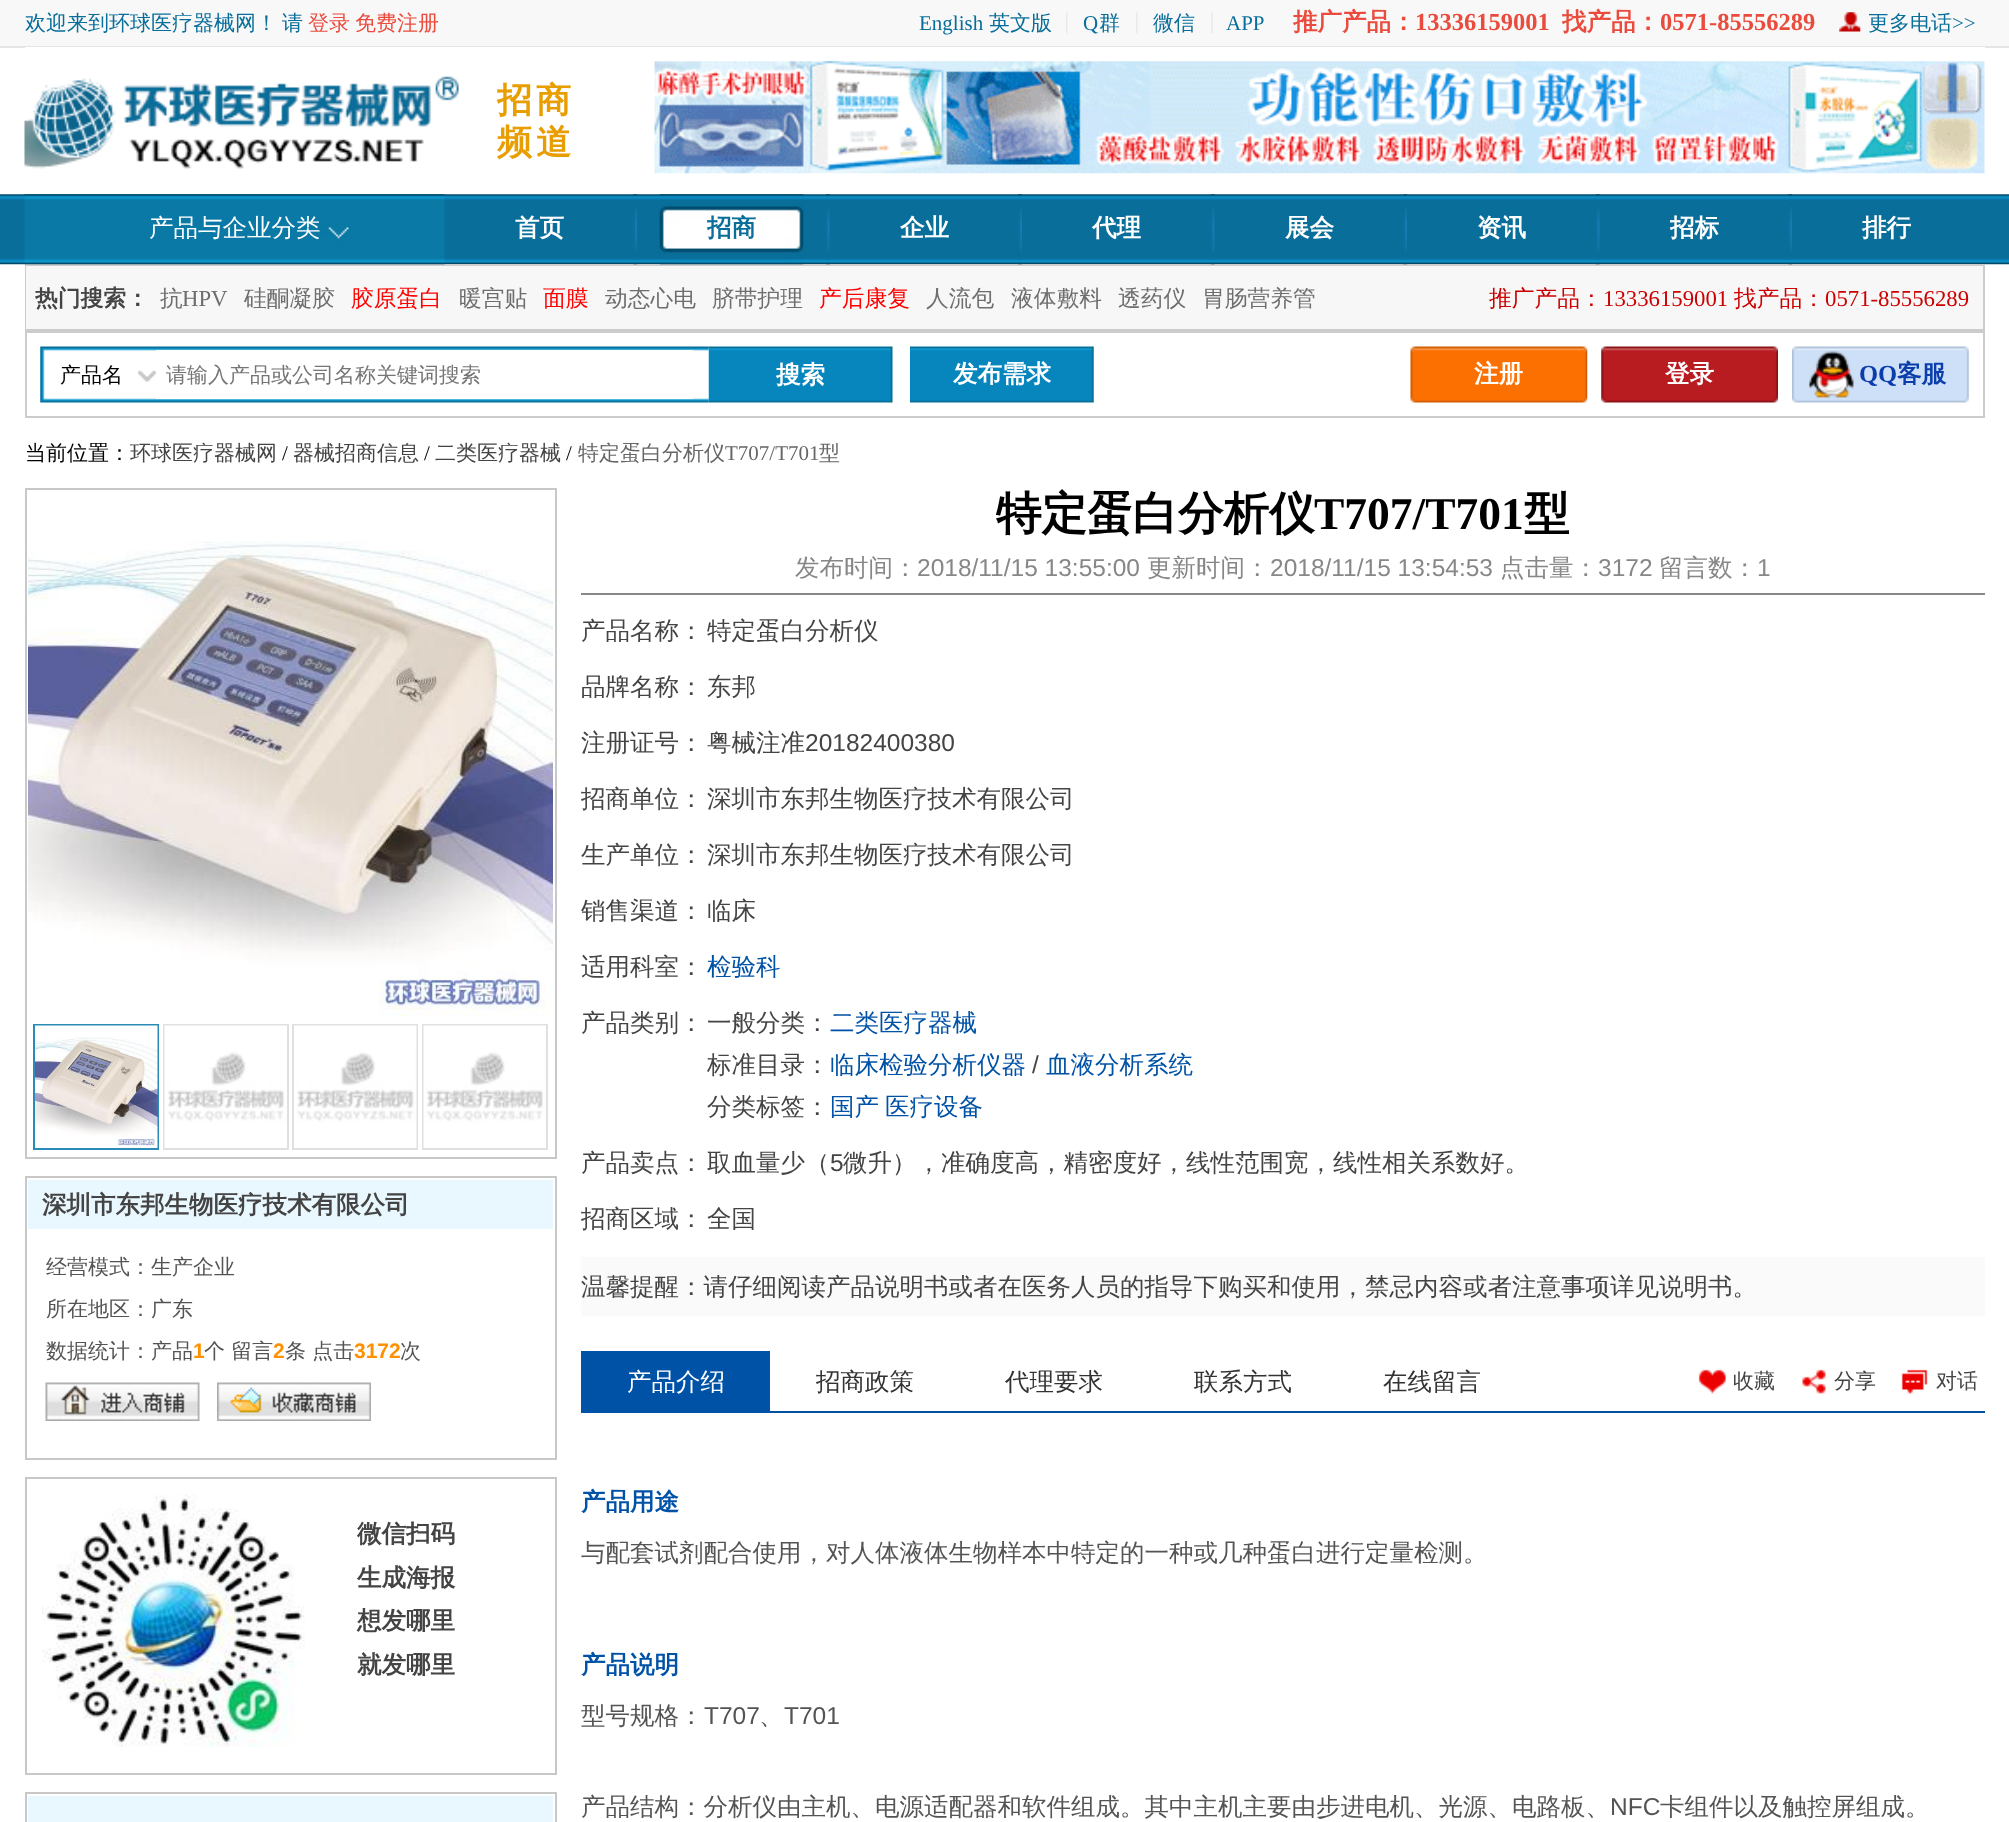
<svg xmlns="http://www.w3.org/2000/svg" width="2009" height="1822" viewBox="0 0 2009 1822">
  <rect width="100%" height="100%" fill="#fff"/>
  <path d="M0 0h2009v46H0z" fill="#f8f8f8"/>
  <path d="M0 46h2009v2H0z" fill="#e5e5e5"/>
  <image x="1066" y="12" width="2" height="22" href="img/1.png"/>
  <image x="1136" y="12" width="2" height="22" href="img/1.png"/>
  <image x="1211" y="12" width="2" height="22" href="img/2.png"/>
  <image x="1839" y="12" width="22" height="20" href="img/3.png"/>
  <path d="M25 47h1960v1H25z" fill="#fff"/>
  <image x="24" y="76" width="435" height="93" href="img/4.png"/>
  <image x="654" y="61" width="1331" height="113" href="img/5.png"/>
  <image x="0" y="194" width="2009" height="71" href="img/6.png"/>
  <path d="M26 265h1958v152H26z" fill="none" stroke="#ccc" stroke-width="2"/>
  <image x="24" y="194" width="421" height="71" href="img/7.png"/>
  <image x="633" y="194" width="4" height="71" href="img/8.png"/>
  <image x="826" y="194" width="4" height="71" href="img/9.png"/>
  <image x="659" y="194" width="145" height="71" href="img/10.png"/>
  <image x="1018" y="194" width="4" height="71" href="img/8.png"/>
  <image x="1211" y="194" width="4" height="71" href="img/9.png"/>
  <image x="1403" y="194" width="4" height="71" href="img/8.png"/>
  <image x="1596" y="194" width="4" height="71" href="img/9.png"/>
  <image x="1788" y="194" width="4" height="71" href="img/8.png"/>
  <path d="M26 266h1957v63H26z" fill="#f7f7f7"/>
  <path d="M26 329h1957v4H26z" fill="#ccc"/>
  <image x="40" y="346" width="669" height="57" href="img/11.png"/>
  <image x="138" y="370" width="18" height="12" href="img/12.png"/>
  <path d="M156 350h537v49H156z" fill="#fff"/>
  <image x="708" y="346" width="185" height="57" href="img/13.png"/>
  <image x="910" y="346" width="184" height="57" href="img/14.png"/>
  <image x="1410" y="346" width="178" height="57" href="img/15.png"/>
  <image x="1601" y="346" width="177" height="57" href="img/16.png"/>
  <image x="1792" y="346" width="177" height="57" href="img/17.png"/>
  <path d="M26 489h530v669H26z" fill="none" stroke="#c8c8c8" stroke-width="2"/>
  <image x="28" y="541" width="525" height="476" href="img/18.png"/>
  <path d="M34 1025h124v124H34z" fill="none" stroke="#2a8bb6" stroke-width="2"/>
  <image x="35" y="1025" width="123" height="123" href="img/19.png"/>
  <path d="M164 1025h124v124H164z" fill="none" stroke="#e0e0e0" stroke-width="2"/>
  <image x="164" y="1025" width="123" height="123" href="img/20.png"/>
  <path d="M293 1025h124v124H293z" fill="none" stroke="#e0e0e0" stroke-width="2"/>
  <image x="294" y="1025" width="123" height="123" href="img/21.png"/>
  <path d="M423 1025h124v124H423z" fill="none" stroke="#e0e0e0" stroke-width="2"/>
  <image x="423" y="1025" width="123" height="123" href="img/20.png"/>
  <path d="M26 1177h530v282H26z" fill="none" stroke="#c8c8c8" stroke-width="2"/>
  <path d="M28 1180h525v49H28z" fill="#e9f7fe"/>
  <image x="45" y="1382" width="155" height="39" href="img/22.png"/>
  <image x="217" y="1382" width="154" height="39" href="img/23.png"/>
  <path d="M26 1478h530v296H26z" fill="none" stroke="#c8c8c8" stroke-width="2"/>
  <image x="42" y="1494" width="263" height="253" href="img/24.png"/>
  <path d="M26 1793h530v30H26z" fill="none" stroke="#c8c8c8" stroke-width="2"/>
  <path d="M28 1796h525v26H28z" fill="#e9f7fe"/>
  <path d="M581 593h1404v2H581z" fill="#878787"/>
  <path d="M581 1257h1404v59H581z" fill="#fafafa"/>
  <path d="M581 1411h1404v2H581z" fill="#0052a6"/>
  <path d="M581 1351h189v60H581z" fill="#0052a6"/>
  <image x="1698" y="1369" width="28" height="25" href="img/25.png"/>
  <image x="1802" y="1369" width="24" height="25" href="img/26.png"/>
  <image x="1901" y="1369" width="27" height="25" href="img/27.png"/>
  <g font-family="WenQuanYi Zen Hei" font-size="21" font-weight="500" fill="#096e9a">
    <text x="25" y="30">欢迎来到环球医疗器械网！</text>
    <text x="282" y="30">请</text>
  </g>
  <g font-family="WenQuanYi Zen Hei" font-size="21" font-weight="500" fill="#ea4b3c">
    <text x="308" y="30">登录</text>
    <text x="355" y="30">免费注册</text>
  </g>
  <text x="919" y="30" font-family="Liberation Serif" font-size="21" fill="#096e9a">English</text>
  <text x="989" y="30" font-family="WenQuanYi Zen Hei" font-size="21" font-weight="500" fill="#096e9a">英文版</text>
  <text x="1083" y="30" font-family="Liberation Serif" font-size="21" fill="#096e9a">Q</text>
  <g font-family="WenQuanYi Zen Hei" font-size="21" font-weight="500" fill="#096e9a">
    <text x="1099" y="30">群</text>
    <text x="1153" y="30">微信</text>
  </g>
  <text x="1226" y="30" font-family="Liberation Serif" font-size="21" fill="#096e9a">APP</text>
  <text x="1293" y="30" font-family="WenQuanYi Zen Hei" font-size="24.5" font-weight="bold" fill="#ea4b3c">推广产品：</text>
  <text x="1415" y="30" font-family="Liberation Serif" font-size="24.5" font-weight="bold" fill="#ea4b3c">13336159001</text>
  <text x="1562" y="30" font-family="WenQuanYi Zen Hei" font-size="24.5" font-weight="bold" fill="#ea4b3c">找产品：</text>
  <text x="1660" y="30" font-family="Liberation Serif" font-size="24.5" font-weight="bold" fill="#ea4b3c">0571-85556289</text>
  <text x="1868" y="30" font-family="WenQuanYi Zen Hei" font-size="21" font-weight="500" fill="#096e9a">更多电话</text>
  <text x="1952" y="30" font-family="Liberation Serif" font-size="21" fill="#096e9a">&gt;&gt;</text>
  <g font-family="WenQuanYi Zen Hei" font-size="35" font-weight="bold" letter-spacing="4" fill="#e89e01">
    <text x="497" y="112">招商</text>
    <text x="497" y="154">频道</text>
  </g>
  <text x="149" y="236" font-family="WenQuanYi Zen Hei" font-size="24.5" font-weight="500" fill="#fff">产品与企业分类</text>
  <text x="515" y="236" font-family="WenQuanYi Zen Hei" font-size="24.5" font-weight="bold" fill="#fff">首页</text>
  <text x="707" y="236" font-family="WenQuanYi Zen Hei" font-size="24.5" font-weight="bold" fill="#096e9a">招商</text>
  <g font-family="WenQuanYi Zen Hei" font-size="24.5" font-weight="bold" fill="#fff">
    <text x="900" y="236">企业</text>
    <text x="1092" y="236">代理</text>
    <text x="1285" y="236">展会</text>
    <text x="1477" y="236">资讯</text>
    <text x="1670" y="236">招标</text>
    <text x="1862" y="236">排行</text>
  </g>
  <text x="35" y="306" font-family="WenQuanYi Zen Hei" font-size="22.75" font-weight="bold" fill="#444">热门搜索：</text>
  <text x="160" y="306" font-family="WenQuanYi Zen Hei" font-size="22.75" font-weight="500" fill="#6e6e6e">抗</text>
  <text x="182" y="306" font-family="Liberation Serif" font-size="22.75" fill="#6e6e6e">HPV</text>
  <text x="244" y="306" font-family="WenQuanYi Zen Hei" font-size="22.75" font-weight="500" fill="#6e6e6e">硅酮凝胶</text>
  <text x="351" y="306" font-family="WenQuanYi Zen Hei" font-size="22.75" font-weight="500" fill="#f00">胶原蛋白</text>
  <text x="459" y="306" font-family="WenQuanYi Zen Hei" font-size="22.75" font-weight="500" fill="#6e6e6e">暖宫贴</text>
  <text x="543" y="306" font-family="WenQuanYi Zen Hei" font-size="22.75" font-weight="500" fill="#f00">面膜</text>
  <g font-family="WenQuanYi Zen Hei" font-size="22.75" font-weight="500" fill="#6e6e6e">
    <text x="605" y="306">动态心电</text>
    <text x="712" y="306">脐带护理</text>
  </g>
  <text x="819" y="306" font-family="WenQuanYi Zen Hei" font-size="22.75" font-weight="500" fill="#f00">产后康复</text>
  <g font-family="WenQuanYi Zen Hei" font-size="22.75" font-weight="500" fill="#6e6e6e">
    <text x="926" y="306">人流包</text>
    <text x="1011" y="306">液体敷料</text>
    <text x="1118" y="306">透药仪</text>
    <text x="1202" y="306">胃肠营养管</text>
  </g>
  <text x="1489" y="306" font-family="WenQuanYi Zen Hei" font-size="22.75" font-weight="500" fill="#c00">推广产品：</text>
  <text x="1603" y="306" font-family="Liberation Serif" font-size="22.75" fill="#c00">13336159001</text>
  <text x="1734" y="306" font-family="WenQuanYi Zen Hei" font-size="22.75" font-weight="500" fill="#c00">找产品：</text>
  <text x="1825" y="306" font-family="Liberation Serif" font-size="22.75" fill="#c00">0571-85556289</text>
  <text x="60" y="382" font-family="WenQuanYi Zen Hei" font-size="21" font-weight="500" fill="#000">产品名</text>
  <text x="166" y="382" font-family="WenQuanYi Zen Hei" font-size="21" font-weight="500" fill="#757575">请输入产品或公司名称关键词搜索</text>
  <g font-family="WenQuanYi Zen Hei" font-size="24.5" font-weight="bold" fill="#fff">
    <text x="776" y="383">搜索</text>
    <text x="953" y="382">发布需求</text>
    <text x="1474" y="382">注册</text>
    <text x="1665" y="382">登录</text>
  </g>
  <text x="1859" y="382" font-family="Liberation Serif" font-size="24.5" font-weight="bold" fill="#0b3dac">QQ</text>
  <text x="1897" y="382" font-family="WenQuanYi Zen Hei" font-size="24.5" font-weight="bold" fill="#0b3dac">客服</text>
  <text x="25" y="460" font-family="WenQuanYi Zen Hei" font-size="21" font-weight="500" fill="#000">当前位置：</text>
  <text x="130" y="460" font-family="WenQuanYi Zen Hei" font-size="21" font-weight="500" fill="#444">环球医疗器械网</text>
  <text x="282" y="460" font-family="Liberation Serif" font-size="21" fill="#000">/</text>
  <text x="293" y="460" font-family="WenQuanYi Zen Hei" font-size="21" font-weight="500" fill="#444">器械招商信息</text>
  <text x="424" y="460" font-family="Liberation Serif" font-size="21" fill="#000">/</text>
  <text x="435" y="460" font-family="WenQuanYi Zen Hei" font-size="21" font-weight="500" fill="#444">二类医疗器械</text>
  <text x="566" y="460" font-family="Liberation Serif" font-size="21" fill="#000">/</text>
  <text x="578" y="460" font-family="WenQuanYi Zen Hei" font-size="21" font-weight="500" fill="#666">特定蛋白分析仪</text>
  <text x="725" y="460" font-family="Liberation Serif" font-size="21" fill="#666">T707/T701</text>
  <text x="819" y="460" font-family="WenQuanYi Zen Hei" font-size="21" font-weight="500" fill="#666">型</text>
  <text x="42" y="1213" font-family="WenQuanYi Zen Hei" font-size="24.5" font-weight="bold" fill="#444">深圳市东邦生物医疗技术有限公司</text>
  <g font-family="WenQuanYi Zen Hei" font-size="21" font-weight="500" fill="#545454">
    <text x="46" y="1274">经营模式：生产企业</text>
    <text x="46" y="1316">所在地区：广东</text>
    <text x="46" y="1358">数据统计：产品</text>
  </g>
  <text x="193" y="1358" font-family="Liberation Sans" font-size="21" font-weight="bold" fill="#ff9000">1</text>
  <text x="204" y="1358" font-family="WenQuanYi Zen Hei" font-size="21" font-weight="500" fill="#545454">个 留言</text>
  <text x="273" y="1358" font-family="Liberation Sans" font-size="21" font-weight="bold" fill="#ff9000">2</text>
  <text x="285" y="1358" font-family="WenQuanYi Zen Hei" font-size="21" font-weight="500" fill="#545454">条 点击</text>
  <text x="354" y="1358" font-family="Liberation Sans" font-size="21" font-weight="bold" fill="#ff9000">3172</text>
  <text x="400" y="1358" font-family="WenQuanYi Zen Hei" font-size="21" font-weight="500" fill="#545454">次</text>
  <g font-family="WenQuanYi Zen Hei" font-size="24.5" font-weight="bold" fill="#444">
    <text x="357" y="1542">微信扫码</text>
    <text x="357" y="1586">生成海报</text>
    <text x="357" y="1629">想发哪里</text>
    <text x="357" y="1673">就发哪里</text>
  </g>
  <text x="996" y="529" font-family="WenQuanYi Zen Hei" font-size="45.5" font-weight="bold" fill="#000">特定蛋白分析仪</text>
  <text x="1314" y="529" font-family="Liberation Serif" font-size="45.5" font-weight="bold" fill="#000">T707/T701</text>
  <text x="1524" y="529" font-family="WenQuanYi Zen Hei" font-size="45.5" font-weight="bold" fill="#000">型</text>
  <text x="795" y="576" font-family="WenQuanYi Zen Hei" font-size="24.5" font-weight="500" fill="#878787">发布时间：</text>
  <text x="917" y="576" font-family="Liberation Sans" font-size="24.5" fill="#878787">2018/11/15 13:55:00</text>
  <text x="1147" y="576" font-family="WenQuanYi Zen Hei" font-size="24.5" font-weight="500" fill="#878787">更新时间：</text>
  <text x="1270" y="576" font-family="Liberation Sans" font-size="24.5" fill="#878787">2018/11/15 13:54:53</text>
  <text x="1500" y="576" font-family="WenQuanYi Zen Hei" font-size="24.5" font-weight="500" fill="#878787">点击量：</text>
  <text x="1598" y="576" font-family="Liberation Sans" font-size="24.5" fill="#878787">3172</text>
  <text x="1659" y="576" font-family="WenQuanYi Zen Hei" font-size="24.5" font-weight="500" fill="#878787">留言数：</text>
  <text x="1757" y="576" font-family="Liberation Sans" font-size="24.5" fill="#878787">1</text>
  <g font-family="WenQuanYi Zen Hei" font-size="24.5" font-weight="500" fill="#444">
    <text x="581" y="639">产品名称：</text>
    <text x="707" y="639">特定蛋白分析仪</text>
    <text x="581" y="695">品牌名称：</text>
    <text x="707" y="695">东邦</text>
    <text x="581" y="751">注册证号：</text>
    <text x="707" y="751">粤械注准</text>
  </g>
  <text x="805" y="751" font-family="Liberation Sans" font-size="24.5" fill="#444">20182400380</text>
  <g font-family="WenQuanYi Zen Hei" font-size="24.5" font-weight="500" fill="#444">
    <text x="581" y="807">招商单位：</text>
    <text x="707" y="807">深圳市东邦生物医疗技术有限公司</text>
    <text x="581" y="863">生产单位：</text>
    <text x="707" y="863">深圳市东邦生物医疗技术有限公司</text>
    <text x="581" y="919">销售渠道：</text>
    <text x="707" y="919">临床</text>
    <text x="581" y="975">适用科室：</text>
  </g>
  <text x="707" y="975" font-family="WenQuanYi Zen Hei" font-size="24.5" font-weight="500" fill="#0052a6">检验科</text>
  <g font-family="WenQuanYi Zen Hei" font-size="24.5" font-weight="500" fill="#444">
    <text x="581" y="1031">产品类别：</text>
    <text x="707" y="1031">一般分类：</text>
  </g>
  <text x="830" y="1031" font-family="WenQuanYi Zen Hei" font-size="24.5" font-weight="500" fill="#0052a6">二类医疗器械</text>
  <text x="707" y="1073" font-family="WenQuanYi Zen Hei" font-size="24.5" font-weight="500" fill="#444">标准目录：</text>
  <text x="830" y="1073" font-family="WenQuanYi Zen Hei" font-size="24.5" font-weight="500" fill="#0052a6">临床检验分析仪器</text>
  <text x="1032" y="1073" font-family="Liberation Sans" font-size="24.5" fill="#444">/</text>
  <text x="1046" y="1073" font-family="WenQuanYi Zen Hei" font-size="24.5" font-weight="500" fill="#0052a6">血液分析系统</text>
  <text x="707" y="1115" font-family="WenQuanYi Zen Hei" font-size="24.5" font-weight="500" fill="#444">分类标签：</text>
  <g font-family="WenQuanYi Zen Hei" font-size="24.5" font-weight="500" fill="#0052a6">
    <text x="830" y="1115">国产</text>
    <text x="885" y="1115">医疗设备</text>
  </g>
  <g font-family="WenQuanYi Zen Hei" font-size="24.5" font-weight="500" fill="#444">
    <text x="581" y="1171">产品卖点：</text>
    <text x="707" y="1171">取血量少（</text>
  </g>
  <text x="830" y="1171" font-family="Liberation Sans" font-size="24.5" fill="#444">5</text>
  <g font-family="WenQuanYi Zen Hei" font-size="24.5" font-weight="500" fill="#444">
    <text x="843" y="1171">微升），准确度高，精密度好，线性范围宽，线性相关系数好。</text>
    <text x="581" y="1227">招商区域：</text>
    <text x="707" y="1227">全国</text>
    <text x="581" y="1295">温馨提醒：请仔细阅读产品说明书或者在医务人员的指导下购买和使用，禁忌内容或者注意事项详见说明书。</text>
  </g>
  <text x="627" y="1390" font-family="WenQuanYi Zen Hei" font-size="24.5" font-weight="500" fill="#fff">产品介绍</text>
  <g font-family="WenQuanYi Zen Hei" font-size="24.5" font-weight="500" fill="#333">
    <text x="816" y="1390">招商政策</text>
    <text x="1005" y="1390">代理要求</text>
    <text x="1194" y="1390">联系方式</text>
    <text x="1383" y="1390">在线留言</text>
  </g>
  <g font-family="WenQuanYi Zen Hei" font-size="21" font-weight="500" fill="#444">
    <text x="1733" y="1388">收藏</text>
    <text x="1834" y="1388">分享</text>
    <text x="1936" y="1388">对话</text>
  </g>
  <text x="581" y="1510" font-family="WenQuanYi Zen Hei" font-size="24.5" font-weight="bold" fill="#0052a6">产品用途</text>
  <text x="581" y="1561" font-family="WenQuanYi Zen Hei" font-size="24.5" font-weight="500" fill="#545454">与配套试剂配合使用，对人体液体生物样本中特定的一种或几种蛋白进行定量检测。</text>
  <text x="581" y="1673" font-family="WenQuanYi Zen Hei" font-size="24.5" font-weight="bold" fill="#0052a6">产品说明</text>
  <text x="581" y="1724" font-family="WenQuanYi Zen Hei" font-size="24.5" font-weight="500" fill="#545454">型号规格：</text>
  <text x="704" y="1724" font-family="Liberation Sans" font-size="24.5" fill="#545454">T707</text>
  <text x="759" y="1724" font-family="WenQuanYi Zen Hei" font-size="24.5" font-weight="500" fill="#545454">、</text>
  <text x="784" y="1724" font-family="Liberation Sans" font-size="24.5" fill="#545454">T701</text>
  <text x="581" y="1815" font-family="WenQuanYi Zen Hei" font-size="24.5" font-weight="500" fill="#545454">产品结构：分析仪由主机、电源适配器和软件组成。其中主机主要由步进电机、光源、电路板、</text>
  <text x="1610" y="1815" font-family="Liberation Sans" font-size="24.5" fill="#545454">NFC</text>
  <text x="1660" y="1815" font-family="WenQuanYi Zen Hei" font-size="24.5" font-weight="500" fill="#545454">卡组件以及触控屏组成。</text>
</svg>
